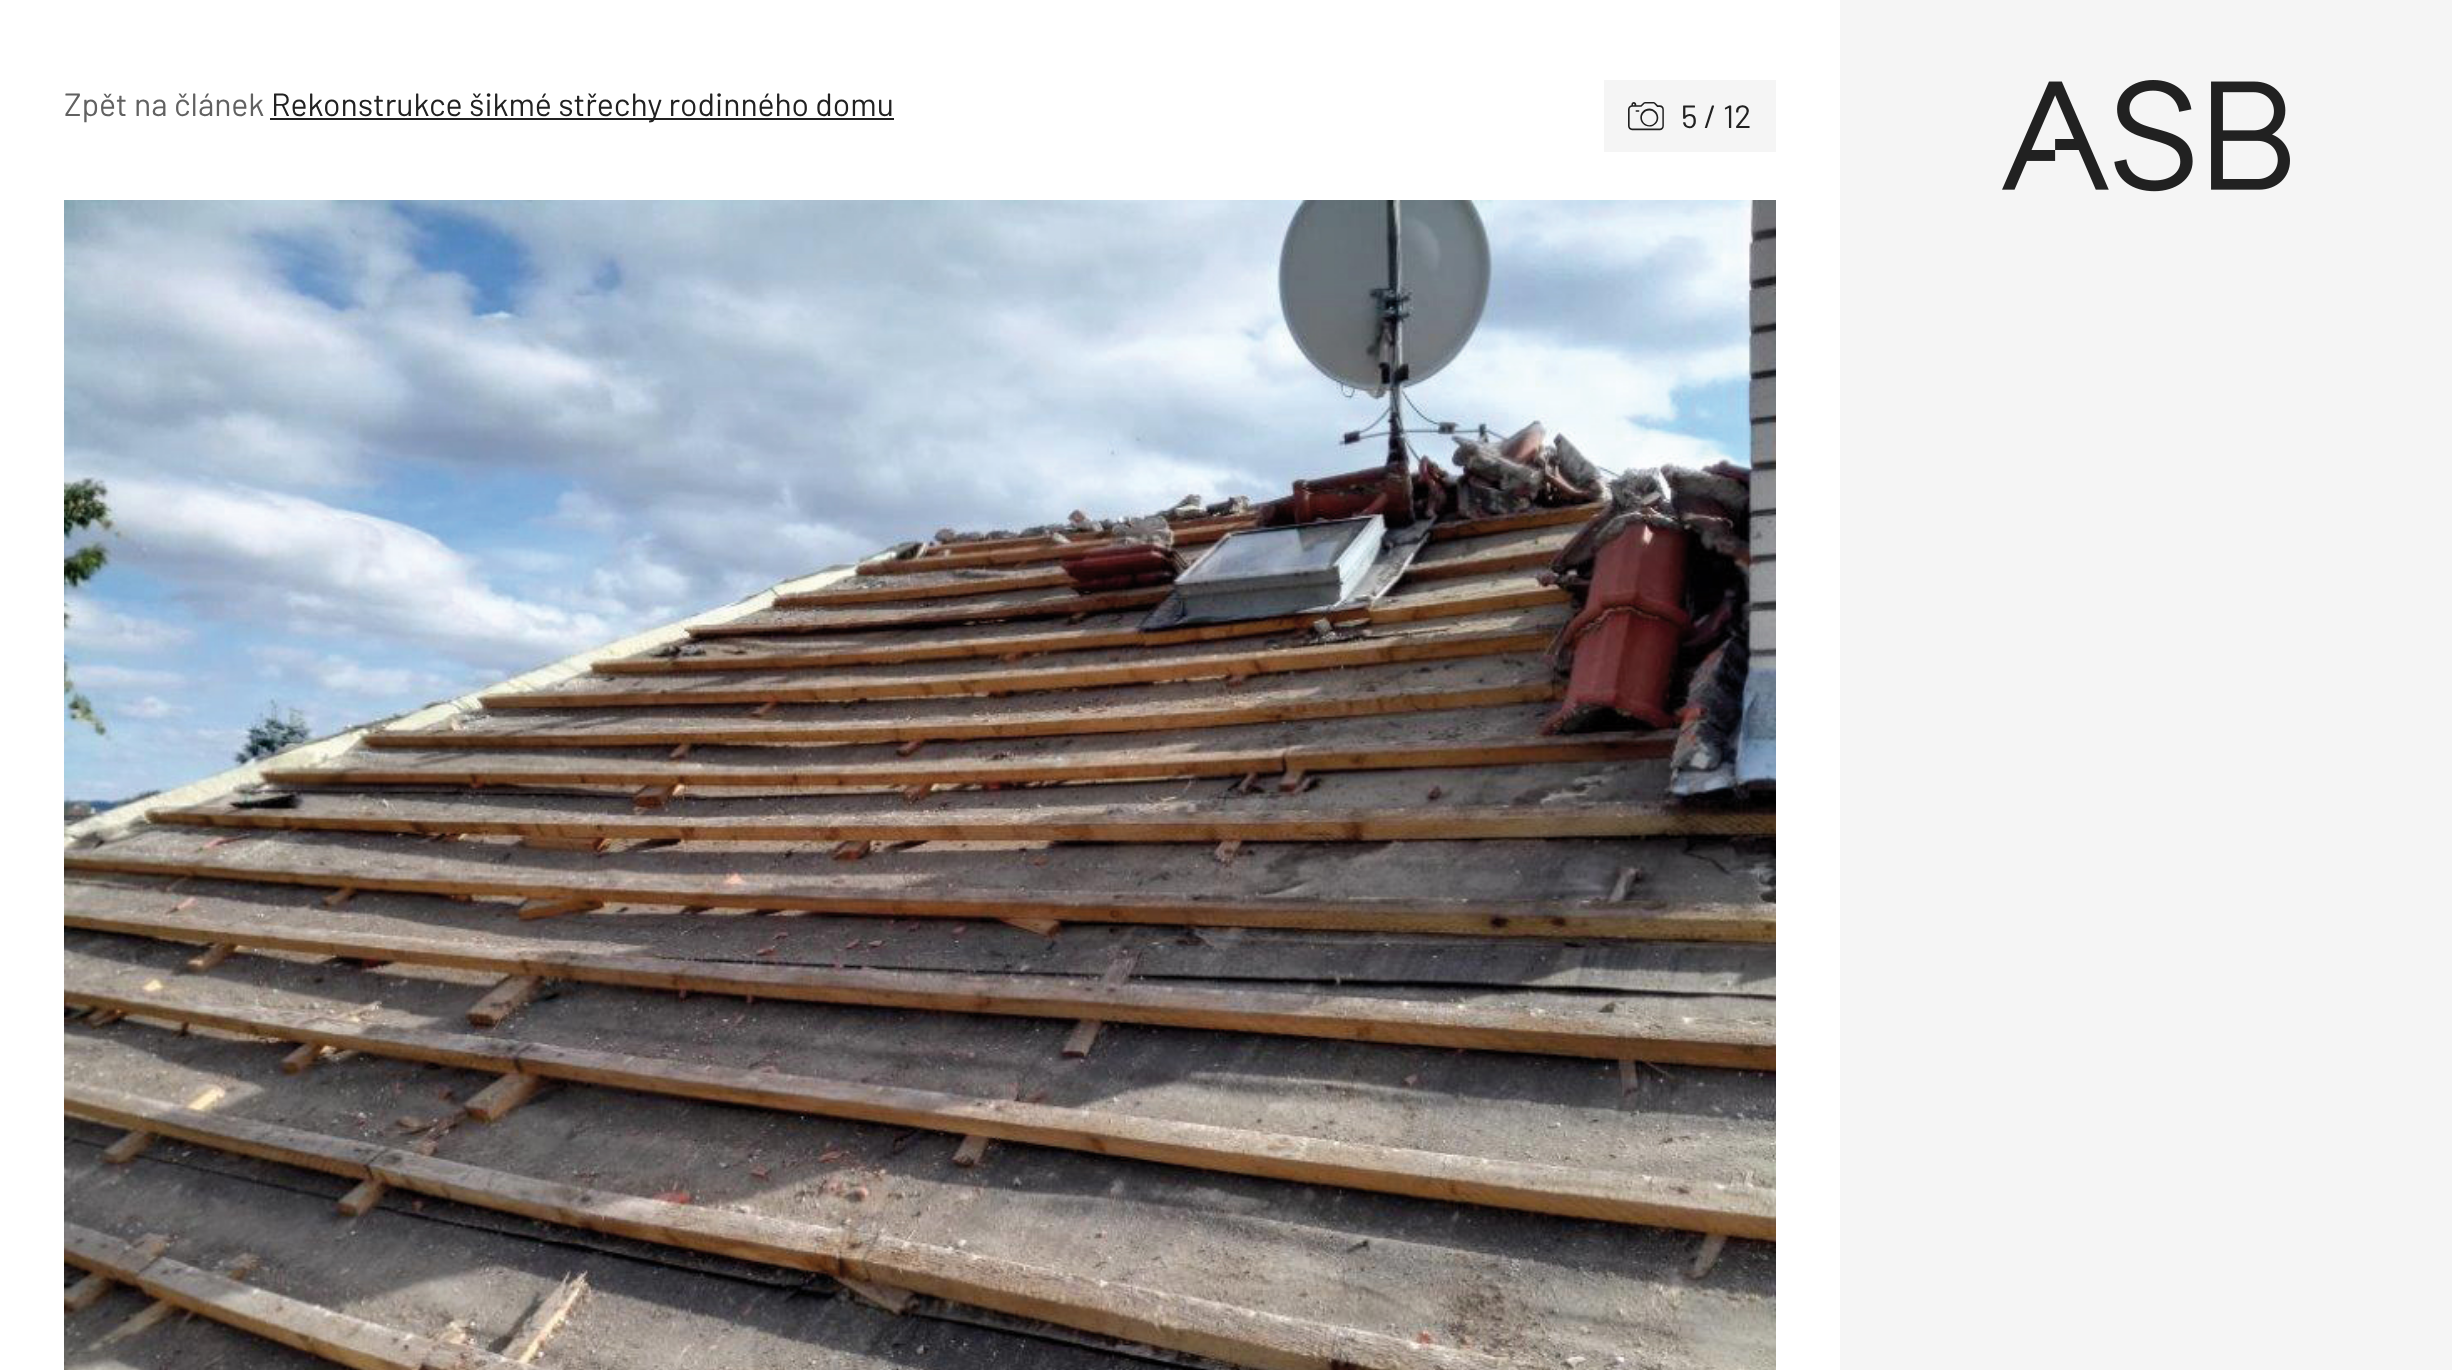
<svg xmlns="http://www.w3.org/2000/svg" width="2452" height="1370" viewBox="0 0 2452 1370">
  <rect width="100%" height="100%" fill="#fff"/>
  <path d="M270 118h624v2H270z" fill="#212121"/>
  <path d="M1604 80h172v72H1604z" fill="#f5f5f5"/>
  <image x="1628" y="102" width="36" height="29" href="img/1.png"/>
  <image x="64" y="200" width="1712" height="1170" href="img/2.png"/>
  <path d="M1840 0h612v1370H1840z" fill="#f5f5f5"/>
  <image x="2002" y="80" width="288" height="112" href="img/3.png"/>
  <text x="64" y="116" font-family="Barlow" font-size="32" fill="#616161">Zpět na článek</text>
  <g font-family="Barlow" font-size="32" fill="#212121">
    <text x="271" y="116">Rekonstrukce šikmé střechy rodinného domu</text>
    <text x="1681" y="128">5 / 12</text>
  </g>
</svg>
